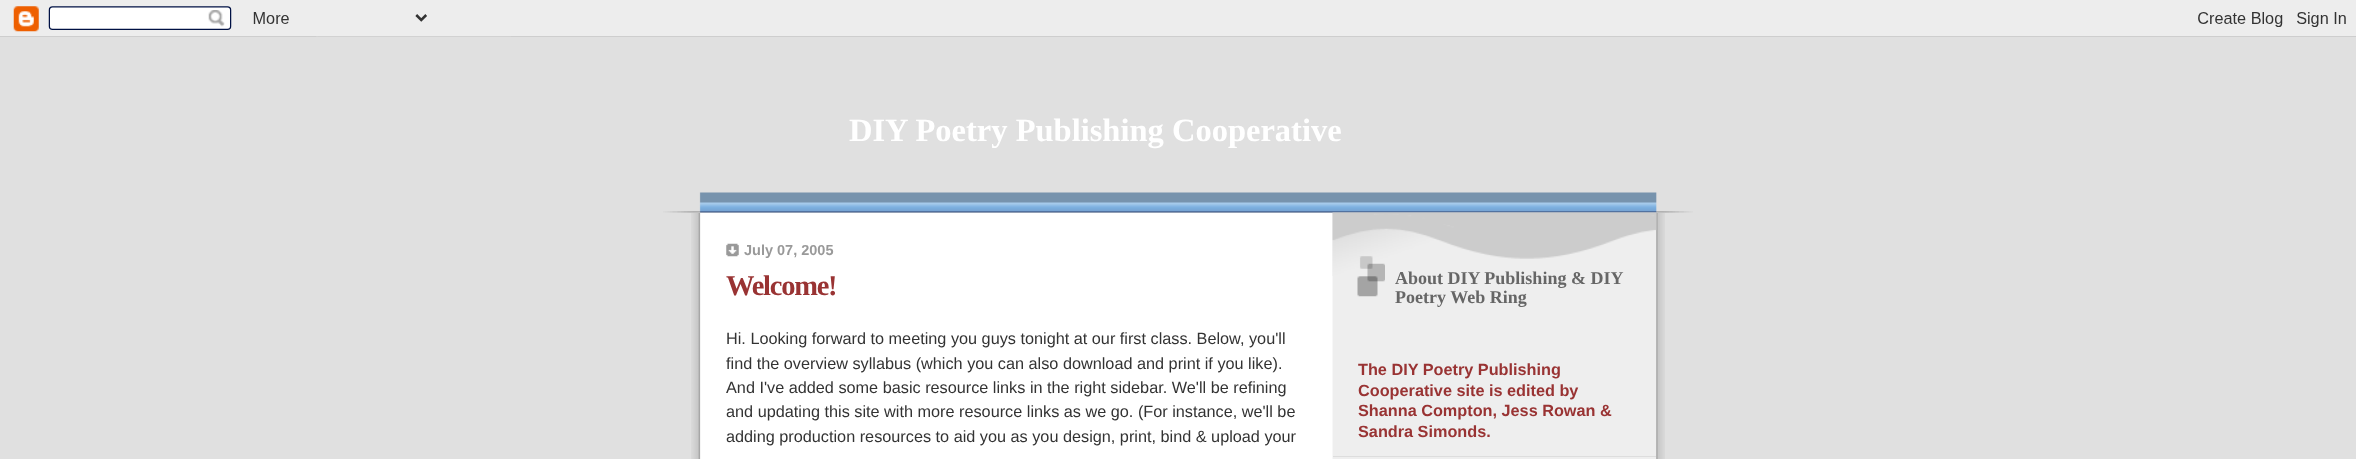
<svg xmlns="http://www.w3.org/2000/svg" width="2356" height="459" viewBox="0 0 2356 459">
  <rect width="100%" height="100%" fill="#e0e0e0"/>
  <image x="0" y="0" width="2356" height="37" href="img/1.png"/>
  <image x="691" y="213" width="974" height="246" href="img/2.png"/>
  <image x="663" y="192" width="1030" height="21" href="img/3.png"/>
  <image x="726" y="243" width="13" height="14" href="img/4.png"/>
  <image x="1332" y="212" width="325" height="64" href="img/5.png"/>
  <image x="1357" y="256" width="28" height="41" href="img/6.png"/>
  <path d="M1333 456h323v1H1333z" fill="#ddd"/>
  <text x="849" y="141" font-family="Liberation Serif" font-size="32.5" font-weight="bold" fill="#fff">DIY Poetry Publishing Cooperative</text>
  <text x="744" y="255" font-family="Liberation Sans" font-size="14.5" font-weight="bold" fill="#999">July 07, 2005</text>
  <text x="726" y="295" font-family="Liberation Serif" font-size="28.5" font-weight="bold" letter-spacing="-1.25" fill="#933">Welcome!</text>
  <g font-family="Liberation Sans" font-size="16.25" fill="#333">
    <text x="726" y="344">Hi. Looking forward to meeting you guys tonight at our first class. Below, you'll</text>
    <text x="726" y="369">find the overview syllabus (which you can also download and print if you like).</text>
    <text x="726" y="393">And I've added some basic resource links in the right sidebar. We'll be refining</text>
    <text x="726" y="417">and updating this site with more resource links as we go. (For instance, we'll be</text>
    <text x="726" y="442">adding production resources to aid you as you design, print, bind &amp; upload your</text>
  </g>
  <g font-family="Liberation Serif" font-size="18" font-weight="bold" fill="#666">
    <text x="1395" y="284">About DIY Publishing &amp; DIY</text>
    <text x="1395" y="303">Poetry Web Ring</text>
  </g>
  <g font-family="Liberation Sans" font-size="16.25" font-weight="bold" fill="#933">
    <text x="1358" y="375">The DIY Poetry Publishing</text>
    <text x="1358" y="396">Cooperative site is edited by</text>
    <text x="1358" y="416">Shanna Compton, Jess Rowan &amp;</text>
    <text x="1358" y="437">Sandra Simonds.</text>
  </g>
</svg>
